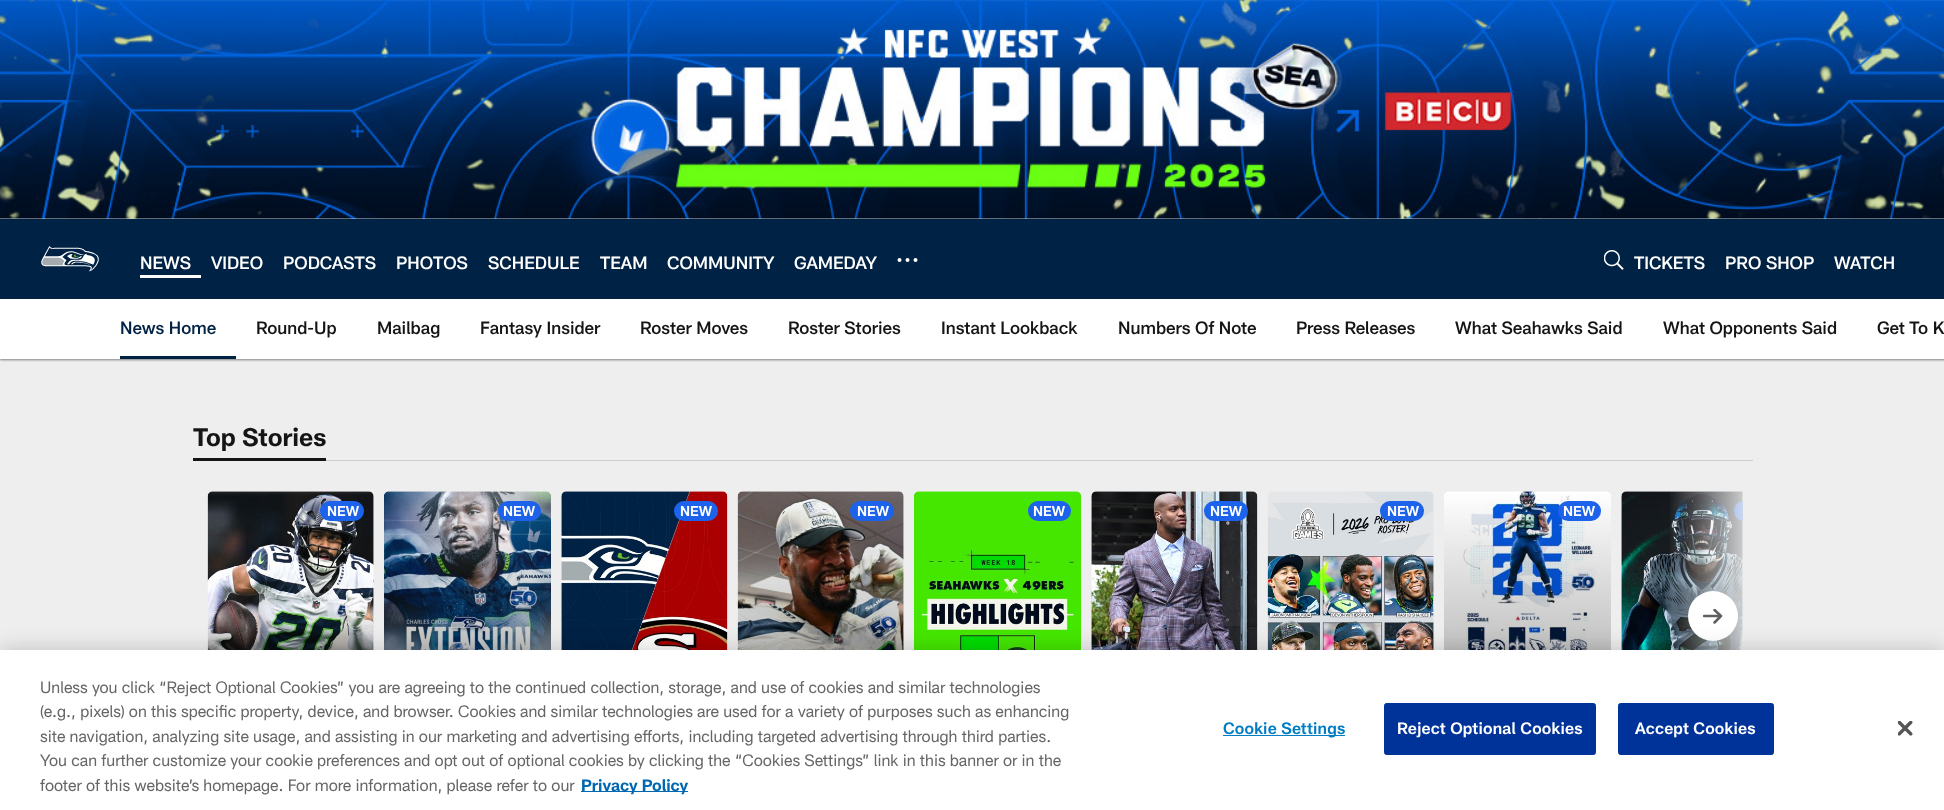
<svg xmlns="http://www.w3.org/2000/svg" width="1944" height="810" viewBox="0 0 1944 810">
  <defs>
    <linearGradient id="g1" gradientUnits="userSpaceOnUse" x1="1758" y1="616" x2="1668" y2="616"><stop offset="0" stop-color="#eee"/><stop offset="1" stop-color="#eee" stop-opacity="0"/></linearGradient>
    <clipPath id="clip1"><path d="M1703 609h20v15H1703z"/></clipPath>
  </defs>
  <rect width="100%" height="100%" fill="#eee"/>
  <image x="0" y="0" width="1944" height="219" href="img/1.png"/>
  <path d="M0 220h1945v80H0z" fill="#00000078" filter="blur(1px)"/>
  <path d="M0 219h1944v80H0z" fill="#024"/>
  <image x="41" y="246" width="58" height="26" href="img/2.png"/>
  <path d="M140 275h61v3H140z" fill="#fff"/>
  <circle cx="915.5" cy="260" r="2" fill="#fff"/>
  <circle cx="907.5" cy="260" r="2" fill="#fff"/>
  <circle cx="899.5" cy="260" r="2" fill="#fff"/>
  <image x="1604" y="250" width="20" height="20" href="img/3.png"/>
  <path d="M0 300h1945v60H0z" fill="#00000078" filter="blur(1px)"/>
  <path d="M0 299h1944v60H0z" fill="#fff"/>
  <path d="M120 356h116v3H120z" fill="#024"/>
  <path d="M326 460h1427v1H326z" fill="#ccc"/>
  <path d="M193 458h133v3H193z" fill="#151515"/>
  <image x="207" y="491" width="167" height="159" href="img/4.png"/>
  <rect x="320" y="501" width="44" height="20" rx="10" fill="#1c62eb"/>
  <image x="384" y="491" width="167" height="159" href="img/5.png"/>
  <rect x="498" y="501" width="43" height="20" rx="10" fill="#1c62eb"/>
  <image x="561" y="491" width="167" height="159" href="img/6.png"/>
  <rect x="674" y="501" width="44" height="20" rx="10" fill="#1c62eb"/>
  <image x="737" y="491" width="167" height="159" href="img/7.png"/>
  <rect x="850" y="501" width="44" height="20" rx="10" fill="#1c62eb"/>
  <image x="914" y="491" width="167" height="159" href="img/8.png"/>
  <rect x="1028" y="501" width="43" height="20" rx="10" fill="#1c62eb"/>
  <image x="1091" y="491" width="167" height="159" href="img/9.png"/>
  <rect x="1204" y="501" width="44" height="20" rx="10" fill="#1c62eb"/>
  <image x="1267" y="491" width="167" height="159" href="img/10.png"/>
  <rect x="1380" y="501" width="44" height="20" rx="10" fill="#1c62eb"/>
  <image x="1444" y="491" width="167" height="159" href="img/11.png"/>
  <rect x="1558" y="501" width="43" height="20" rx="10" fill="#1c62eb"/>
  <image x="1621" y="491" width="122" height="159" href="img/12.png"/>
  <path d="M1744 501H1743V521H1744C1738.5 521 1734 516.5 1734 511C1734 505.5 1738.5 501 1744 501Z" fill="#1c62eb"/>
  <path d="M1670 491h74v159H1670z" fill="url(#g1)"/>
  <circle cx="1713" cy="616" r="25" fill="#fff"/>
  <g clip-path="url(#clip1)">
    <path d="M1714.5 610L1721 616M1721 616L1714.5 622.5M1721 616H1704" fill="none" stroke="#5f5f5f" stroke-width="2.5" stroke-linecap="round" stroke-linejoin="round"/>
  </g>
  <path d="M0 650h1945v160H0z" fill="#00000033" filter="blur(11px)"/>
  <path d="M0 650h1944v160H0z" fill="#fff"/>
  <path d="M581 791h107v1H581z" fill="#0067b1"/>
  <path d="M1223 735h122v1H1223z" fill="#007dc3"/>
  <rect x="1384.5" y="703.5" width="211" height="51" rx="2" fill="#039" stroke="#039"/>
  <rect x="1618.5" y="703.5" width="155" height="51" rx="2" fill="#039" stroke="#039"/>
  <image x="1898" y="721" width="15" height="15" href="img/13.png"/>
  <g font-family="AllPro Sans" font-size="17.5" font-weight="500" fill="#fff">
    <text x="140" y="269">NEWS</text>
    <text x="211" y="269">VIDEO</text>
    <text x="283" y="269">PODCASTS</text>
    <text x="396" y="269">PHOTOS</text>
    <text x="488" y="269">SCHEDULE</text>
    <text x="600" y="269">TEAM</text>
    <text x="667" y="269">COMMUNITY</text>
    <text x="794" y="269">GAMEDAY</text>
    <text x="1634" y="269">TICKETS</text>
    <text x="1725" y="269">PRO SHOP</text>
    <text x="1834" y="269">WATCH</text>
  </g>
  <text x="120" y="334" font-family="AllPro Sans" font-size="17.5" font-weight="500" fill="#024">News Home</text>
  <g font-family="AllPro Sans" font-size="17.5" font-weight="500" fill="#151515">
    <text x="256" y="334">Round-Up</text>
    <text x="377" y="334">Mailbag</text>
    <text x="480" y="334">Fantasy Insider</text>
    <text x="640" y="334">Roster Moves</text>
    <text x="788" y="334">Roster Stories</text>
    <text x="941" y="334">Instant Lookback</text>
    <text x="1118" y="334">Numbers Of Note</text>
    <text x="1296" y="334">Press Releases</text>
    <text x="1455" y="334">What Seahawks Said</text>
    <text x="1663" y="334">What Opponents Said</text>
    <text x="1877" y="334">Get To K</text>
  </g>
  <text x="193" y="446" font-family="AllPro Sans" font-size="25" font-weight="bold" fill="#151515">Top Stories</text>
  <g font-family="AllPro Sans" font-size="14" font-weight="600" fill="#fff">
    <text x="327" y="516">NEW</text>
    <text x="503" y="516">NEW</text>
    <text x="680" y="516">NEW</text>
    <text x="857" y="516">NEW</text>
    <text x="1033" y="516">NEW</text>
    <text x="1210" y="516">NEW</text>
    <text x="1387" y="516">NEW</text>
    <text x="1563" y="516">NEW</text>
  </g>
  <g font-family="AllPro Sans" font-size="16.25" fill="#666">
    <text x="40" y="693">Unless you click “Reject Optional Cookies” you are agreeing to the continued collection, storage, and use of cookies and similar technologies</text>
    <text x="40" y="717">(e.g., pixels) on this specific property, device, and browser. Cookies and similar technologies are used for a variety of purposes such as enhancing</text>
    <text x="40" y="742">site navigation, analyzing site usage, and assisting in our marketing and advertising efforts, including targeted advertising through third parties.</text>
    <text x="40" y="766">You can further customize your cookie preferences and opt out of optional cookies by clicking the “Cookies Settings” link in this banner or in the</text>
    <text x="40" y="791">footer of this website’s homepage. For more information, please refer to our</text>
  </g>
  <text x="581" y="791" font-family="AllPro Sans" font-size="16.25" font-weight="bold" fill="#0067b1">Privacy Policy</text>
  <text x="1223" y="734" font-family="AllPro Sans" font-size="16.25" font-weight="600" letter-spacing="0.2" fill="#007dc3">Cookie Settings</text>
  <g font-family="AllPro Sans" font-size="16.25" font-weight="600" letter-spacing="0.2" fill="#fff">
    <text x="1397" y="734">Reject Optional Cookies</text>
    <text x="1635" y="734">Accept Cookies</text>
  </g>
</svg>
